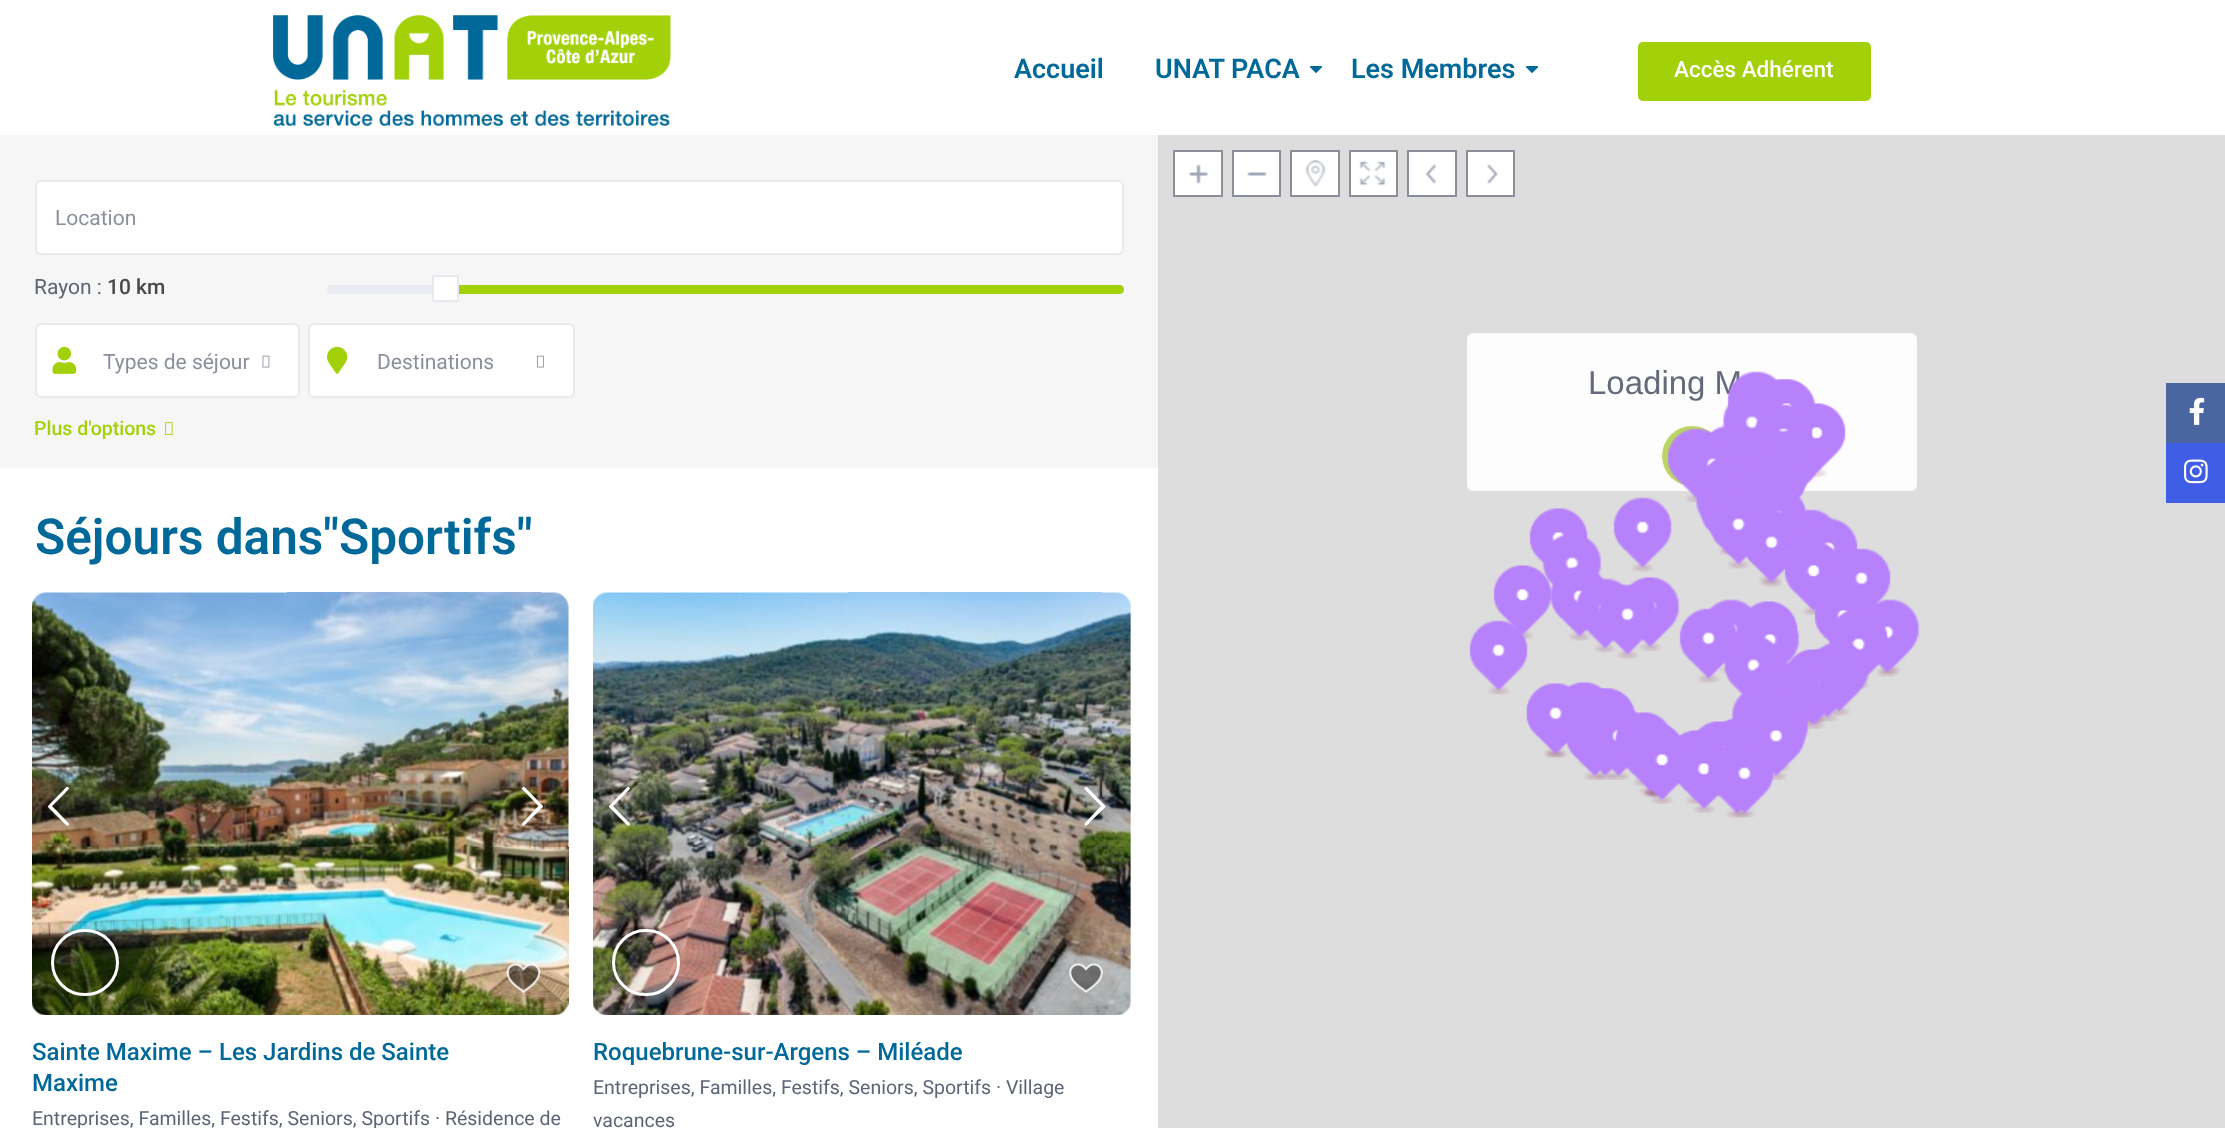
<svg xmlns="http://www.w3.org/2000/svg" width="2225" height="1128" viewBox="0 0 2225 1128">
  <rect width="100%" height="100%" fill="#fff"/>
  <image x="273" y="15" width="398" height="111" href="img/1.png"/>
  <image x="1310" y="66" width="13" height="7" href="img/2.png"/>
  <image x="1526" y="66" width="13" height="7" href="img/2.png"/>
  <rect x="1638" y="42" width="233" height="59" rx="5" fill="#a2d109"/>
  <path d="M0 135h1158v333H0z" fill="#f6f6f6"/>
  <rect x="36" y="181" width="1087" height="73" rx="5" fill="#fff" stroke="#e7e9ef" stroke-width="2"/>
  <rect x="327" y="285" width="797" height="9" rx="4.5" fill="#e9edf3"/>
  <rect x="446" y="285" width="678" height="9" rx="4.5" fill="#a2d109"/>
  <rect x="433" y="276" width="25" height="25" rx="0.5" fill="#fff" stroke="#e7e9ef" stroke-width="2"/>
  <rect x="36" y="324" width="263" height="73" rx="5" fill="#fff" stroke="#e7e9ef" stroke-width="2"/>
  <image x="52" y="346" width="25" height="28" href="img/3.png"/>
  <image x="262" y="355" width="8" height="13" href="img/4.png"/>
  <rect x="309" y="324" width="265" height="73" rx="5" fill="#fff" stroke="#e7e9ef" stroke-width="2"/>
  <image x="327" y="346" width="21" height="28" href="img/5.png"/>
  <image x="537" y="355" width="7" height="13" href="img/6.png"/>
  <image x="165" y="422" width="8" height="13" href="img/7.png"/>
  <image x="32" y="592" width="537" height="423" href="img/8.png"/>
  <path d="M68.5 823L69 824.5C68 828 63.5 822.5 63 822L48 807V806L48.5 805.5L66.5 787H67.5C71.5 788 66 791.5 65.5 792.5L52 806Z" fill="#fff"/>
  <path d="M522.5 823L538.5 806L525.5 792.5C524.5 791.5 519.5 788 523.5 787H524.5L542.5 805.5L543 806V807L527.5 822C527.5 822.5 523 828 522 824.5Z" fill="#fff"/>
  <rect x="52.5" y="930.5" width="65" height="64" rx="32" fill="none" stroke="#fff" stroke-width="3"/>
  <image x="506" y="963" width="35" height="30" href="img/9.png"/>
  <image x="593" y="592" width="538" height="423" href="img/10.png"/>
  <path d="M629.5 823L630 824.5C629 828 624.5 822.5 624 822L609 807V806L609.5 805.5L627.5 787H628.5C632.5 788 627 791.5 626.5 792.5L613 806Z" fill="#fff"/>
  <path d="M1085 823L1101 806L1088 792.5C1087 791.5 1082 788 1086 787H1087L1105 805.5L1105.5 806V807L1090 822C1090 822.5 1085.5 828 1084.5 824.5Z" fill="#fff"/>
  <rect x="613.5" y="930.5" width="65" height="64" rx="32" fill="none" stroke="#fff" stroke-width="3"/>
  <image x="1069" y="963" width="34" height="30" href="img/11.png"/>
  <path d="M1158 135h1067v993H1158z" fill="#ddd"/>
  <path d="M1175 152h46v43H1175z" fill="#fff"/>
  <image x="1188" y="164" width="21" height="20" href="img/12.png"/>
  <path d="M1174 151h48v45H1174z" fill="none" stroke="#8a8f9a" stroke-width="2"/>
  <path d="M1234 152h45v43H1234z" fill="#fff"/>
  <image x="1247" y="172" width="20" height="4" href="img/13.png"/>
  <path d="M1233 151h47v45H1233z" fill="none" stroke="#8a8f9a" stroke-width="2"/>
  <path d="M1292 152h46v43H1292z" fill="#fff"/>
  <image x="1305" y="160" width="21" height="27" href="img/14.png"/>
  <path d="M1291 151h48v45H1291z" fill="none" stroke="#8a8f9a" stroke-width="2"/>
  <path d="M1351 152h45v43H1351z" fill="#fff"/>
  <image x="1359" y="161" width="27" height="24" href="img/15.png"/>
  <path d="M1350 151h47v45H1350z" fill="none" stroke="#8a8f9a" stroke-width="2"/>
  <path d="M1409 152h46v43H1409z" fill="#fff"/>
  <image x="1425" y="164" width="12" height="20" href="img/16.png"/>
  <path d="M1408 151h48v45H1408z" fill="none" stroke="#8a8f9a" stroke-width="2"/>
  <path d="M1468 152h45v43H1468z" fill="#fff"/>
  <image x="1487" y="164" width="11" height="20" href="img/17.png"/>
  <path d="M1467 151h47v45H1467z" fill="none" stroke="#8a8f9a" stroke-width="2"/>
  <rect x="1467" y="333" width="450" height="158" rx="6" fill="#fdfdfd"/>
  <circle cx="1692" cy="456" r="30" fill="#bbd664"/>
  <image x="1756" y="503" width="4" height="13" href="img/45.png"/>
  <image x="1529" y="508" width="59" height="74" href="img/46.png"/>
  <image x="1542" y="534" width="60" height="53" href="img/50.png"/>
  <image x="1493" y="565" width="59" height="74" href="img/53.png"/>
  <image x="1550" y="566" width="55" height="75" href="img/54.png"/>
  <image x="1628" y="577" width="52" height="74" href="img/55.png"/>
  <image x="1576" y="578" width="50" height="75" href="img/58.png"/>
  <image x="1599" y="584" width="57" height="75" href="img/59.png"/>
  <image x="1707" y="599" width="46" height="75" href="img/60.png"/>
  <image x="1469" y="620" width="59" height="75" href="img/64.png"/>
  <image x="1679" y="608" width="58" height="75" href="img/65.png"/>
  <image x="1565" y="682" width="39" height="74" href="img/80.png"/>
  <image x="1526" y="683" width="57" height="75" href="img/79.png"/>
  <image x="1526" y="683" width="57" height="75" href="img/82.png"/>
  <image x="1583" y="688" width="53" height="25" href="img/84.png"/>
  <image x="1589" y="688" width="24" height="24" href="img/85.png"/>
  <image x="1587" y="712" width="17" height="1" href="img/90.png"/>
  <image x="1561" y="713" width="40" height="54" href="img/95.png"/>
  <image x="1566" y="716" width="39" height="64" href="img/98.png"/>
  <image x="1588" y="726" width="28" height="54" href="img/105.png"/>
  <image x="1598" y="709" width="42" height="71" href="img/91.png"/>
  <image x="1614" y="712" width="60" height="74" href="img/96.png"/>
  <image x="1626" y="727" width="51" height="68" href="img/107.png"/>
  <image x="1643" y="725" width="38" height="72" href="img/102.png"/>
  <image x="1644" y="725" width="37" height="72" href="img/106.png"/>
  <image x="1645" y="727" width="36" height="71" href="img/108.png"/>
  <path d="M2166 383h59v60H2166z" fill="#4a66a0"/>
  <image x="2189" y="397" width="16" height="28" href="img/115.png"/>
  <path d="M2166 443h59v60H2166z" fill="#405de6"/>
  <image x="2184" y="459" width="24" height="25" href="img/116.png"/>
  <g font-family="Roboto" font-size="27" font-weight="600" fill="#006999">
    <text x="1014" y="78">Accueil</text>
    <text x="1155" y="78">UNAT PACA</text>
    <text x="1351" y="78">Les Membres</text>
  </g>
  <text x="1674" y="77" font-family="Roboto" font-size="22.5" font-weight="500" fill="#fff">Accès Adhérent</text>
  <text x="55" y="225" font-family="Roboto" font-size="21" fill="#8a8f9a">Location</text>
  <text x="34" y="294" font-family="Roboto" font-size="21" fill="#5d6475">Rayon :</text>
  <text x="107" y="294" font-family="Roboto" font-size="21" font-weight="500" fill="#484848">10 km</text>
  <g font-family="Roboto" font-size="21" fill="#8a8f9a">
    <text x="103" y="369">Types de séjour</text>
    <text x="377" y="369">Destinations</text>
  </g>
  <text x="34" y="435" font-family="Roboto" font-size="19.5" font-weight="500" fill="#a2d109">Plus d'options</text>
  <text x="35" y="554" font-family="Roboto" font-size="49.5" font-weight="600" fill="#006999">Séjours dans"Sportifs"</text>
  <g font-family="Roboto" font-size="24" font-weight="500" fill="#006999">
    <text x="32" y="1060">Sainte Maxime – Les Jardins de Sainte</text>
    <text x="32" y="1091">Maxime</text>
  </g>
  <text x="32" y="1125" font-family="Roboto" font-size="19.5" fill="#5d6475">Entreprises, Familles, Festifs, Seniors, Sportifs · Résidence de</text>
  <text x="593" y="1060" font-family="Roboto" font-size="24" font-weight="500" fill="#006999">Roquebrune-sur-Argens – Miléade</text>
  <g font-family="Roboto" font-size="19.5" fill="#5d6475">
    <text x="593" y="1094">Entreprises, Familles, Festifs, Seniors, Sportifs · Village</text>
    <text x="593" y="1127">vacances</text>
  </g>
  <text x="1588" y="394" font-family="Liberation Sans" font-size="33" fill="#636a7a">Loading M</text>
  <image x="1727" y="371" width="53" height="39" href="img/18.png"/>
  <image x="1732" y="382" width="43" height="22" href="img/20.png"/>
  <image x="1733" y="382" width="42" height="22" href="img/22.png"/>
  <image x="1755" y="379" width="58" height="28" href="img/19.png"/>
  <image x="1775" y="379" width="41" height="33" href="img/21.png"/>
  <image x="1722" y="404" width="54" height="35" href="img/23.png"/>
  <image x="1796" y="403" width="50" height="74" href="img/25.png"/>
  <image x="1754" y="404" width="59" height="39" href="img/24.png"/>
  <image x="1709" y="425" width="44" height="33" href="img/27.png"/>
  <image x="1667" y="428" width="59" height="75" href="img/26.png"/>
  <image x="1747" y="429" width="40" height="26" href="img/28.png"/>
  <image x="1690" y="449" width="46" height="44" href="img/29.png"/>
  <image x="1763" y="430" width="56" height="72" href="img/30.png"/>
  <image x="1702" y="458" width="16" height="20" href="img/31.png"/>
  <image x="1744" y="454" width="54" height="9" href="img/32.png"/>
  <image x="1757" y="463" width="50" height="36" href="img/35.png"/>
  <image x="1708" y="458" width="50" height="15" href="img/33.png"/>
  <image x="1700" y="459" width="54" height="31" href="img/34.png"/>
  <image x="1758" y="472" width="49" height="27" href="img/36.png"/>
  <image x="1781" y="474" width="1" height="1" href="img/38.png"/>
  <image x="1733" y="473" width="51" height="24" href="img/37.png"/>
  <image x="1695" y="481" width="51" height="64" href="img/39.png"/>
  <image x="1613" y="497" width="59" height="75" href="img/41.png"/>
  <image x="1705" y="490" width="31" height="64" href="img/42.png"/>
  <image x="1727" y="487" width="57" height="16" href="img/40.png"/>
  <image x="1760" y="497" width="47" height="23" href="img/43.png"/>
  <image x="1700" y="503" width="56" height="52" href="img/44.png"/>
  <image x="1709" y="505" width="47" height="64" href="img/47.png"/>
  <image x="1788" y="509" width="47" height="42" href="img/49.png"/>
  <image x="1742" y="511" width="49" height="73" href="img/48.png"/>
  <image x="1746" y="533" width="48" height="54" href="img/51.png"/>
  <image x="1804" y="518" width="54" height="72" href="img/52.png"/>
  <image x="1784" y="543" width="57" height="72" href="img/56.png"/>
  <image x="1834" y="548" width="57" height="62" href="img/57.png"/>
  <image x="1748" y="601" width="50" height="39" href="img/61.png"/>
  <image x="1814" y="588" width="59" height="56" href="img/62.png"/>
  <image x="1865" y="599" width="55" height="75" href="img/63.png"/>
  <image x="1745" y="625" width="55" height="41" href="img/66.png"/>
  <image x="1876" y="623" width="39" height="54" href="img/68.png"/>
  <image x="1829" y="610" width="59" height="73" href="img/67.png"/>
  <image x="1724" y="637" width="59" height="59" href="img/69.png"/>
  <image x="1829" y="631" width="59" height="58" href="img/70.png"/>
  <image x="1817" y="642" width="52" height="74" href="img/71.png"/>
  <image x="1813" y="647" width="33" height="75" href="img/72.png"/>
  <image x="1786" y="649" width="48" height="74" href="img/73.png"/>
  <image x="1787" y="650" width="38" height="75" href="img/74.png"/>
  <image x="1743" y="664" width="44" height="32" href="img/75.png"/>
  <image x="1805" y="674" width="20" height="55" href="img/77.png"/>
  <image x="1766" y="662" width="54" height="56" href="img/76.png"/>
  <image x="1777" y="679" width="43" height="43" href="img/78.png"/>
  <image x="1782" y="680" width="38" height="44" href="img/81.png"/>
  <image x="1773" y="686" width="4" height="3" href="img/83.png"/>
  <image x="1756" y="689" width="43" height="4" href="img/86.png"/>
  <image x="1755" y="692" width="54" height="33" href="img/87.png"/>
  <image x="1731" y="693" width="52" height="68" href="img/88.png"/>
  <image x="1783" y="701" width="21" height="5" href="img/89.png"/>
  <image x="1754" y="710" width="27" height="52" href="img/92.png"/>
  <image x="1783" y="705" width="13" height="8" href="img/93.png"/>
  <image x="1796" y="706" width="13" height="22" href="img/94.png"/>
  <image x="1763" y="713" width="46" height="58" href="img/97.png"/>
  <image x="1749" y="721" width="57" height="59" href="img/104.png"/>
  <image x="1722" y="718" width="42" height="44" href="img/99.png"/>
  <image x="1722" y="719" width="41" height="43" href="img/101.png"/>
  <image x="1722" y="721" width="23" height="26" href="img/103.png"/>
  <image x="1696" y="721" width="45" height="74" href="img/100.png"/>
  <image x="1715" y="745" width="18" height="52" href="img/111.png"/>
  <image x="1676" y="730" width="48" height="74" href="img/109.png"/>
  <image x="1649" y="733" width="40" height="71" href="img/110.png"/>
  <image x="1678" y="746" width="48" height="67" href="img/112.png"/>
  <image x="1707" y="746" width="58" height="72" href="img/113.png"/>
  <image x="1730" y="762" width="44" height="56" href="img/114.png"/>
</svg>
